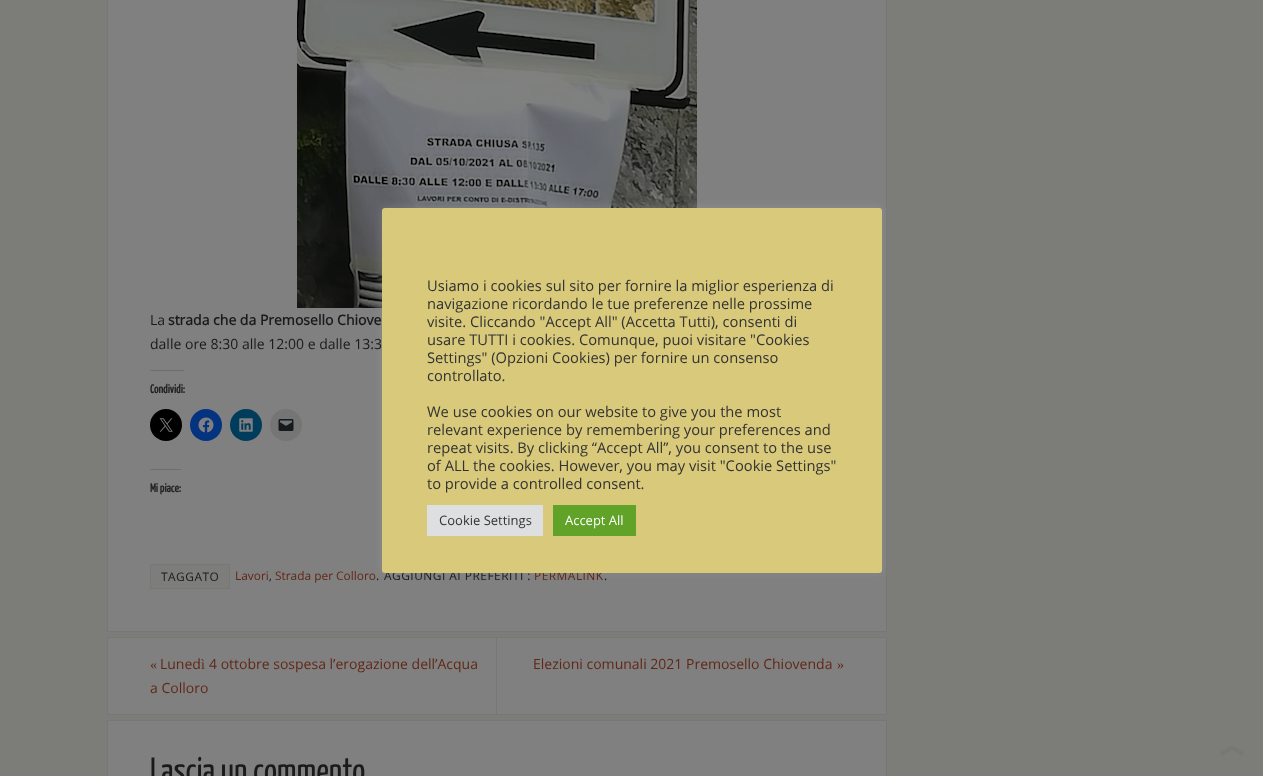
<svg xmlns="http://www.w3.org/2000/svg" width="1263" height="776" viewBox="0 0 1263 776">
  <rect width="100%" height="100%" fill="#7c7c79"/>
  <path d="M107.5 -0.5h779v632H107.5z" fill="#808080" stroke="#777"/>
  <image x="297" y="0" width="400" height="308" href="img/1.png"/>
  <rect x="382" y="207" width="500" height="365" rx="3" fill="#acabab4d" filter="blur(5px)"/>
  <path d="M150 370h34v1H150z" fill="#6e6e6f"/>
  <circle cx="166" cy="425" r="16" fill="#000"/>
  <image x="159" y="418" width="14" height="14" href="img/2.png"/>
  <circle cx="206" cy="425" r="16" fill="#043380"/>
  <image x="198" y="417" width="16" height="16" href="img/3.png"/>
  <circle cx="246" cy="425" r="16" fill="#003c5b"/>
  <image x="239" y="418" width="14" height="14" href="img/4.png"/>
  <circle cx="286" cy="425" r="16" fill="#757575"/>
  <image x="278" y="419" width="16" height="12" href="img/5.png"/>
  <path d="M150 469h31v1H150z" fill="#6e6e6f"/>
  <path d="M150.5 564.5h79v24H150.5z" fill="#7d7d7c" stroke="#777"/>
  <path d="M107.5 637.5h779v77H107.5z" fill="#808080" stroke="#777"/>
  <path d="M496 638h1v76H496z" fill="#767676"/>
  <path d="M107.5 720.5h779v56H107.5z" fill="#808080" stroke="#777"/>
  <image x="1221" y="746" width="22" height="10" href="img/6.png"/>
  <text x="150" y="325" font-family="Open Sans" font-size="14" fill="#1a1a1a">La</text>
  <text x="168" y="325" font-family="Open Sans" font-size="14" font-weight="bold" fill="#1a1a1a">strada che da Premosello Chiove</text>
  <text x="150" y="349" font-family="Open Sans" font-size="14" fill="#1a1a1a">dalle ore 8:30 alle 12:00 e dalle 13:3</text>
  <g font-family="Yanone Kaffeesatz" font-size="12" font-weight="bold" fill="#222">
    <text x="150" y="393">Condividi:</text>
    <text x="150" y="492">Mi piace:</text>
  </g>
  <text x="161" y="581" font-family="Open Sans" font-size="11.9" letter-spacing="0.5" fill="#1a1a1a">TAGGATO</text>
  <text x="235" y="580" font-family="Open Sans" font-size="11.9" fill="#602714">Lavori</text>
  <text x="269" y="580" font-family="Open Sans" font-size="11.9" fill="#1a1a1a">,</text>
  <text x="275" y="580" font-family="Open Sans" font-size="11.9" fill="#602714">Strada per Colloro</text>
  <text x="376" y="580" font-family="Open Sans" font-size="11.9" fill="#1a1a1a">.</text>
  <text x="384" y="580" font-family="Open Sans" font-size="11.9" letter-spacing="0.5" fill="#1a1a1a">AGGIUNGI AI PREFERITI :</text>
  <text x="534" y="580" font-family="Open Sans" font-size="11.9" letter-spacing="0.5" fill="#602714">PERMALINK</text>
  <rect x="382" y="208" width="500" height="365" rx="3" fill="#d8c97b"/>
  <path d="M553 505h83v31H553z" fill="#61a229"/>
  <text x="565" y="525" font-family="Open Sans" font-size="13" fill="#fff">Accept All</text>
  <path d="M427 505h116v31H427z" fill="#dedfe0"/>
  <text x="439" y="525" font-family="Open Sans" font-size="13" fill="#333">Cookie Settings</text>
  <g font-family="Open Sans" font-size="14.7" fill="#333">
    <text x="427" y="489">to provide a controlled consent.</text>
    <text x="427" y="471">of ALL the cookies. However, you may visit "Cookie Settings"</text>
    <text x="427" y="453">repeat visits. By clicking “Accept All”, you consent to the use</text>
    <text x="427" y="435">relevant experience by remembering your preferences and</text>
    <text x="427" y="417">We use cookies on our website to give you the most</text>
    <text x="427" y="381">controllato.</text>
    <text x="427" y="363">Settings" (Opzioni Cookies) per fornire un consenso</text>
    <text x="427" y="345">usare TUTTI i cookies. Comunque, puoi visitare "Cookies</text>
    <text x="427" y="327">visite. Cliccando "Accept All" (Accetta Tutti), consenti di</text>
    <text x="427" y="309">navigazione ricordando le tue preferenze nelle prossime</text>
    <text x="427" y="291">Usiamo i cookies sul sito per fornire la miglior esperienza di</text>
  </g>
  <text x="604" y="580" font-family="Open Sans" font-size="11.9" letter-spacing="0.5" fill="#1a1a1a">.</text>
  <text x="150" y="669" font-family="Liberation Serif" font-size="14" fill="#602714">«</text>
  <text x="160" y="669" font-family="Open Sans" font-size="14" fill="#602714">Luned</text>
  <text x="201" y="669" font-family="Liberation Serif" font-size="14" fill="#602714">ì</text>
  <g font-family="Open Sans" font-size="14" fill="#602714">
    <text x="209" y="669">4 ottobre sospesa l’erogazione dell’Acqua</text>
    <text x="150" y="693">a Colloro</text>
    <text x="533" y="669">Elezioni comunali 2021 Premosello Chiovenda</text>
  </g>
  <text x="837" y="669" font-family="Liberation Serif" font-size="14" fill="#602714">»</text>
  <text x="150" y="782" font-family="Yanone Kaffeesatz" font-size="35" fill="#1a1a1a">Lascia un commento</text>
</svg>
